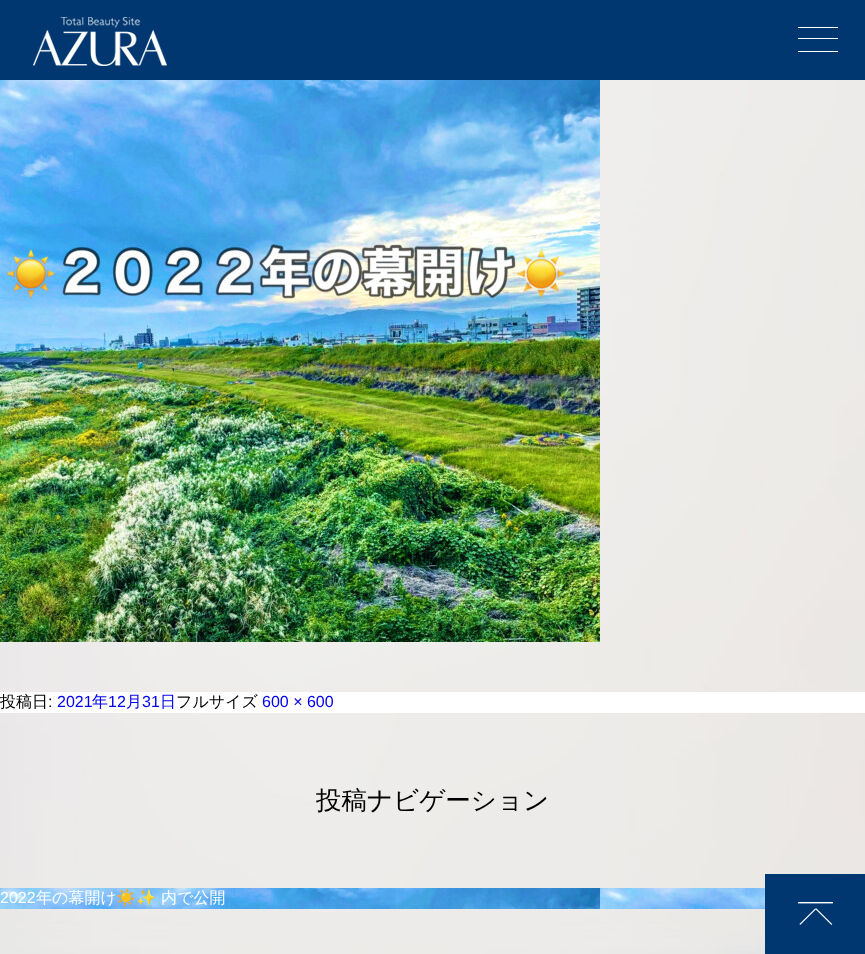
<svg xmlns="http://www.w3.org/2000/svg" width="865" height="954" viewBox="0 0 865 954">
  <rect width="100%" height="100%" fill="#fff"/>
  <image x="0" y="80" width="865" height="874" href="img/1.png"/>
  <path d="M0 0h865v80H0z" fill="#003770"/>
  <image x="33" y="15" width="134" height="51" href="img/2.png"/>
  <path d="M798 38h40v1H798z" fill="#fff"/>
  <path d="M798 27h40v1H798z" fill="#fff"/>
  <path d="M798 51h40v1H798z" fill="#fff"/>
  <image x="0" y="80" width="600" height="562" href="img/3.png"/>
  <path d="M0 692h865v21H0z" fill="#fff"/>
  <image x="0" y="888" width="765" height="21" href="img/4.png"/>
  <path d="M765 874h100v80H765z" fill="#003770"/>
  <image x="798" y="902" width="35" height="23" href="img/5.png"/>
  <text x="0" y="707" font-family="WenQuanYi Zen Hei" font-size="16" font-weight="500" fill="#000">投稿日</text>
  <text x="48" y="707" font-family="Liberation Sans" font-size="16" fill="#000">:</text>
  <text x="57" y="707" font-family="Liberation Sans" font-size="16" fill="#00e">2021</text>
  <text x="92" y="707" font-family="WenQuanYi Zen Hei" font-size="16" font-weight="500" fill="#00e">年</text>
  <text x="108" y="707" font-family="Liberation Sans" font-size="16" fill="#00e">12</text>
  <text x="126" y="707" font-family="WenQuanYi Zen Hei" font-size="16" font-weight="500" fill="#00e">月</text>
  <text x="142" y="707" font-family="Liberation Sans" font-size="16" fill="#00e">31</text>
  <text x="160" y="707" font-family="WenQuanYi Zen Hei" font-size="16" font-weight="500" fill="#00e">日</text>
  <text x="176" y="707" font-family="WenQuanYi Zen Hei" font-size="16" font-weight="500" fill="#000">フルサイズ</text>
  <text x="262" y="707" font-family="Liberation Sans" font-size="16" fill="#00e">600 × 600</text>
  <text x="316" y="809" font-family="WenQuanYi Zen Hei" font-size="25.5" font-weight="500" fill="#000">投稿ナビゲーション</text>
  <text x="0" y="903" font-family="Liberation Sans" font-size="16" fill="#fff">2022</text>
  <text x="36" y="903" font-family="WenQuanYi Zen Hei" font-size="16" font-weight="500" fill="#fff">年の幕開け</text>
  <text x="116" y="903" font-family="Noto Color Emoji" font-size="16" fill="#fff">☀️✨</text>
  <text x="161" y="903" font-family="WenQuanYi Zen Hei" font-size="16" font-weight="500" fill="#fff">内で公開</text>
</svg>
